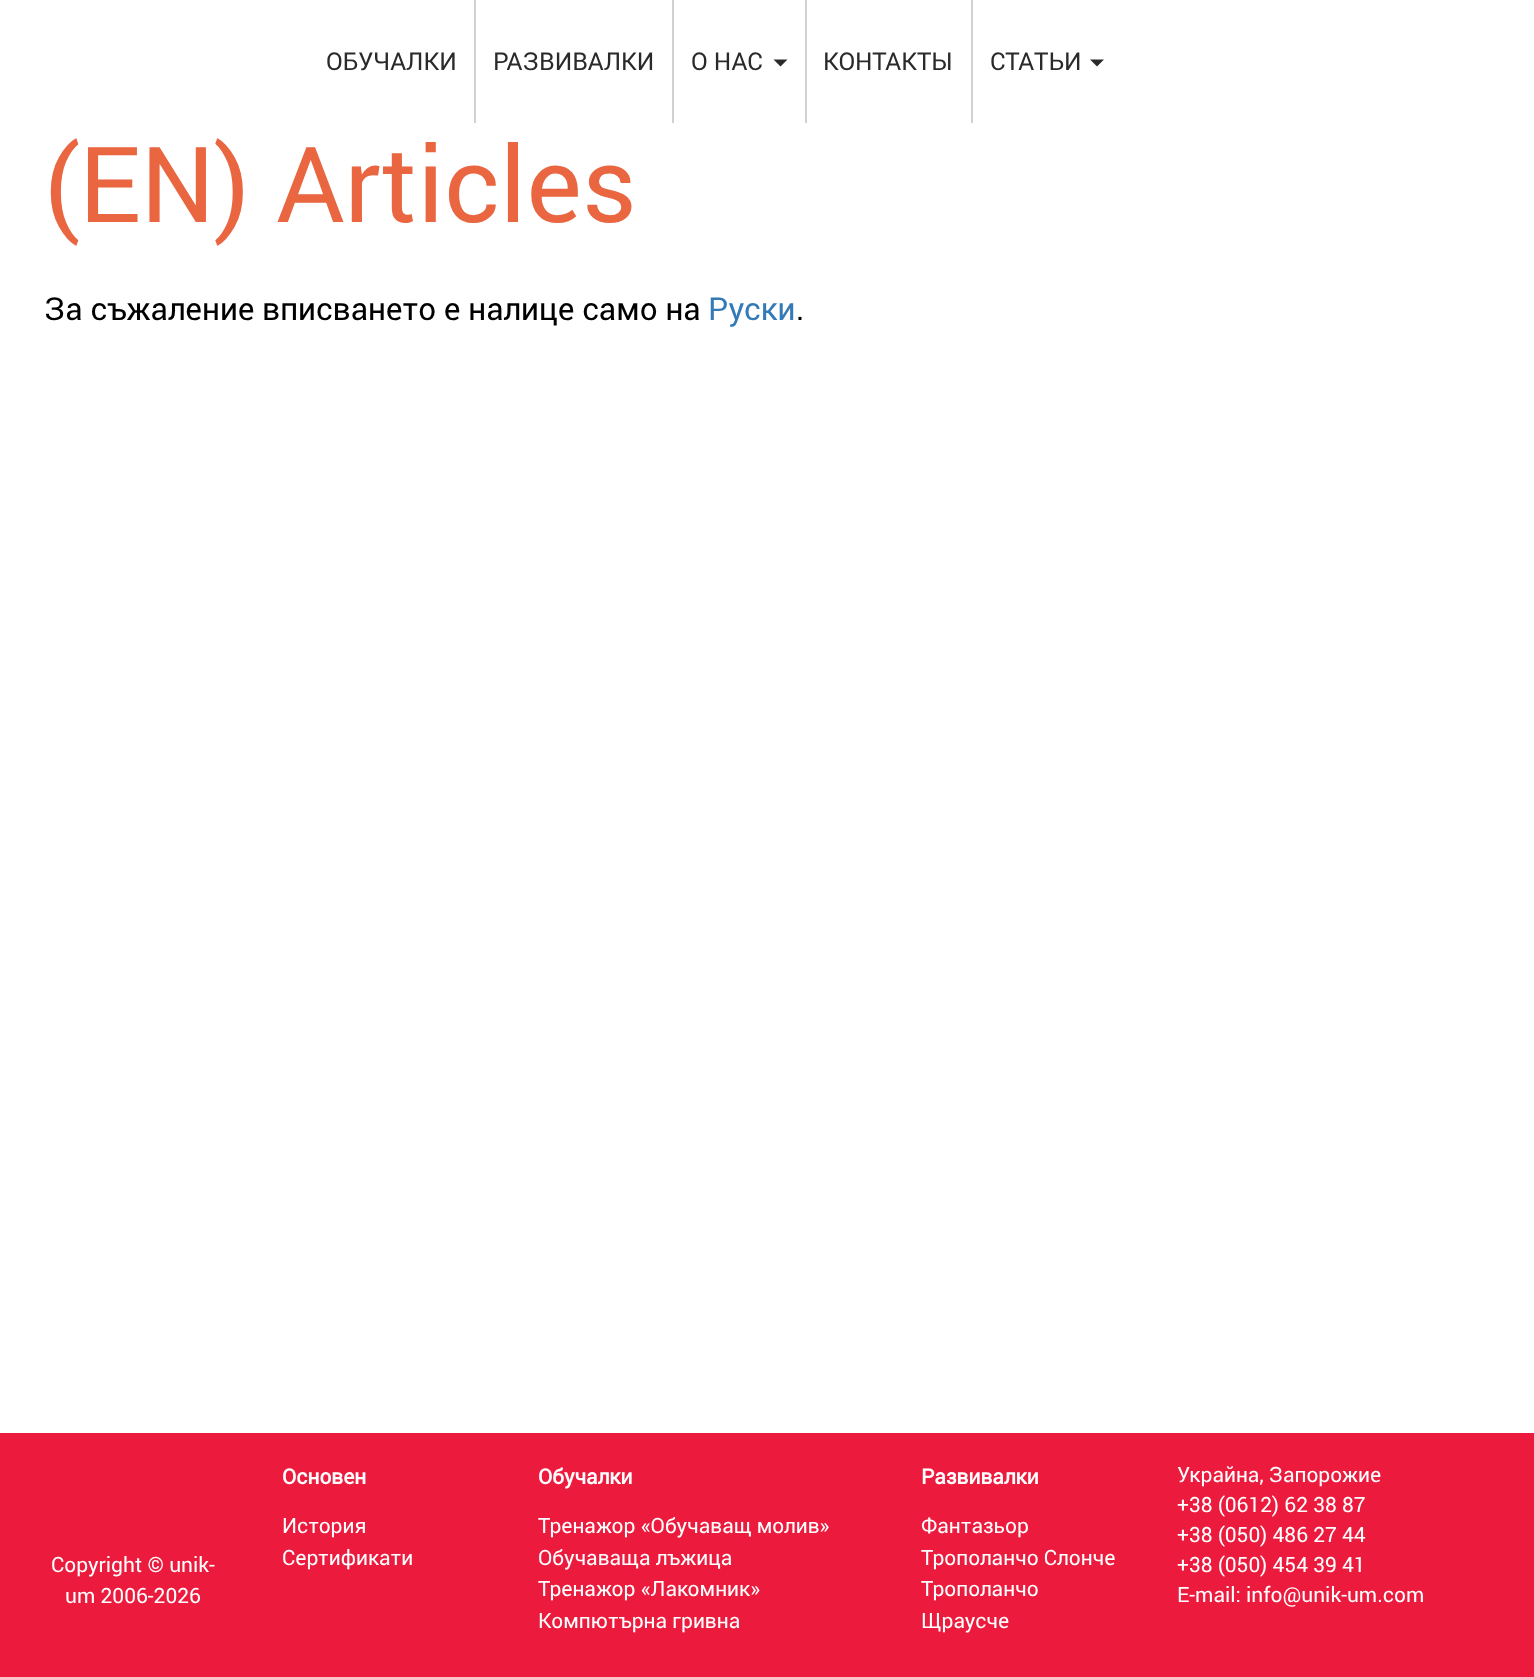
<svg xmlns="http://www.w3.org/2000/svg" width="1534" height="1677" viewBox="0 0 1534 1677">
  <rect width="100%" height="100%" fill="#fff"/>
  <path d="M474 0h2v123H474z" fill="#d1d1d1"/>
  <path d="M672 0h2v123H672z" fill="#d1d1d1"/>
  <path d="M773.5 59.5H787.5L780.5 66.5Z" fill="#2a2a2a"/>
  <path d="M805 0h2v123H805z" fill="#d1d1d1"/>
  <path d="M971 0h2v123H971z" fill="#d1d1d1"/>
  <path d="M1090 59.5H1104L1097 66.5Z" fill="#2a2a2a"/>
  <path d="M0 1433h1534v244H0z" fill="#ec1a3d"/>
  <g font-family="Roboto" font-size="24.5" fill="#2a2a2a">
    <text x="326" y="70">ОБУЧАЛКИ</text>
    <text x="493" y="70">РАЗВИВАЛКИ</text>
    <text x="691" y="70">О НАС</text>
    <text x="823" y="70">КОНТАКТЫ</text>
    <text x="990" y="70">СТАТЬИ</text>
  </g>
  <text x="44" y="222" font-family="Roboto" font-size="105" fill="#e96641">(EN) Articles</text>
  <text x="44" y="320" font-family="Roboto" font-size="31.5" fill="#000">За съжаление вписването е налице само на</text>
  <text x="708" y="320" font-family="Roboto" font-size="31.5" fill="#337ab7">Руски</text>
  <text x="796" y="320" font-family="Roboto" font-size="31.5" fill="#000">.</text>
  <g font-family="Roboto" font-size="21" fill="#fff">
    <text x="51" y="1572">Copyright © unik-</text>
    <text x="65" y="1603">um 2006-2026</text>
  </g>
  <text x="282" y="1484" font-family="Roboto" font-size="21" font-weight="bold" fill="#fff">Основен</text>
  <g font-family="Roboto" font-size="21" fill="#fff">
    <text x="282" y="1533">История</text>
    <text x="282" y="1565">Сертификати</text>
  </g>
  <text x="538" y="1484" font-family="Roboto" font-size="21" font-weight="bold" fill="#fff">Обучалки</text>
  <g font-family="Roboto" font-size="21" fill="#fff">
    <text x="538" y="1533">Тренажор «Обучаващ молив»</text>
    <text x="538" y="1565">Обучаваща лъжица</text>
    <text x="538" y="1596">Тренажор «Лакомник»</text>
    <text x="538" y="1628">Компютърна гривна</text>
  </g>
  <text x="921" y="1484" font-family="Roboto" font-size="21" font-weight="bold" fill="#fff">Развивалки</text>
  <g font-family="Roboto" font-size="21" fill="#fff">
    <text x="921" y="1533">Фантазьор</text>
    <text x="921" y="1565">Трополанчо Слонче</text>
    <text x="921" y="1596">Трополанчо</text>
    <text x="921" y="1628">Щраусче</text>
    <text x="1177" y="1482">Украйна, Запорожие</text>
    <text x="1177" y="1512">+38 (0612) 62 38 87</text>
    <text x="1177" y="1542">+38 (050) 486 27 44</text>
    <text x="1177" y="1572">+38 (050) 454 39 41</text>
    <text x="1177" y="1602">E-mail: info@unik-um.com</text>
  </g>
</svg>
